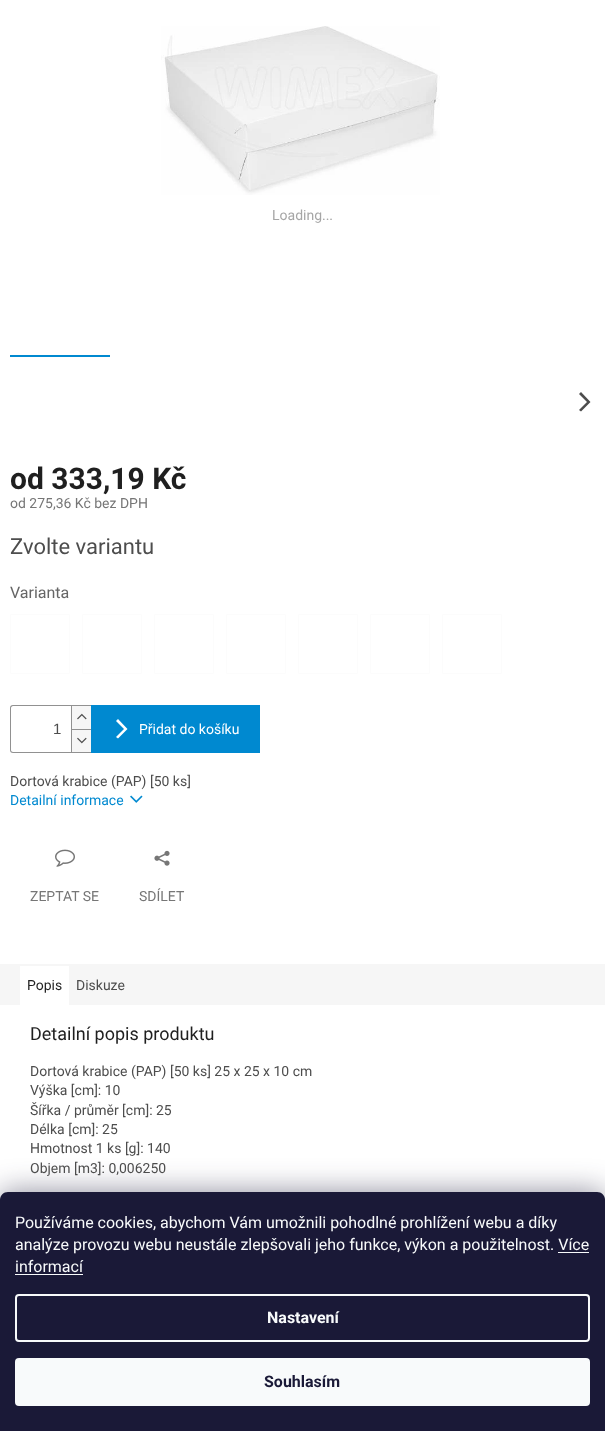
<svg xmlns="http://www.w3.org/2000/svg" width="605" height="1431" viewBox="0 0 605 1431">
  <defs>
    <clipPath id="clip1"><path d="M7 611H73V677H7ZM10 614H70V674H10Z" clip-rule="evenodd"/></clipPath>
    <clipPath id="clip2"><path d="M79 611H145V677H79ZM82 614H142V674H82Z" clip-rule="evenodd"/></clipPath>
    <clipPath id="clip3"><path d="M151 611H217V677H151ZM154 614H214V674H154Z" clip-rule="evenodd"/></clipPath>
    <clipPath id="clip4"><path d="M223 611H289V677H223ZM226 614H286V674H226Z" clip-rule="evenodd"/></clipPath>
    <clipPath id="clip5"><path d="M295 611H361V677H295ZM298 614H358V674H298Z" clip-rule="evenodd"/></clipPath>
    <clipPath id="clip6"><path d="M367 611H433V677H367ZM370 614H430V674H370Z" clip-rule="evenodd"/></clipPath>
    <clipPath id="clip7"><path d="M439 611H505V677H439ZM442 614H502V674H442Z" clip-rule="evenodd"/></clipPath>
  </defs>
  <rect width="100%" height="100%" fill="#fff"/>
  <image x="161" y="26" width="279" height="169" href="img/1.png"/>
  <path d="M10 355h100v2H10z" fill="#0089d0"/>
  <path d="M581 411.5L579 410L587 402L579 394L581 392L590.5 402Z" fill="#4d4d4d"/>
  <g clip-path="url(#clip1)">
    <path d="M10 614h60v60H10z" fill="#00000080" filter="blur(0.5px)"/>
  </g>
  <path d="M10.5 614.5h59v59H10.5z" fill="none" stroke="#fcfcfc"/>
  <g clip-path="url(#clip2)">
    <path d="M82 614h60v60H82z" fill="#00000080" filter="blur(0.5px)"/>
  </g>
  <path d="M82.5 614.5h59v59H82.5z" fill="none" stroke="#fcfcfc"/>
  <g clip-path="url(#clip3)">
    <path d="M154 614h60v60H154z" fill="#00000080" filter="blur(0.5px)"/>
  </g>
  <path d="M154.5 614.5h59v59H154.5z" fill="none" stroke="#fcfcfc"/>
  <g clip-path="url(#clip4)">
    <path d="M226 614h60v60H226z" fill="#00000080" filter="blur(0.5px)"/>
  </g>
  <path d="M226.5 614.5h59v59H226.5z" fill="none" stroke="#fcfcfc"/>
  <g clip-path="url(#clip5)">
    <path d="M298 614h60v60H298z" fill="#00000080" filter="blur(0.5px)"/>
  </g>
  <path d="M298.5 614.5h59v59H298.5z" fill="none" stroke="#fcfcfc"/>
  <g clip-path="url(#clip6)">
    <path d="M370 614h60v60H370z" fill="#00000080" filter="blur(0.5px)"/>
  </g>
  <path d="M370.5 614.5h59v59H370.5z" fill="none" stroke="#fcfcfc"/>
  <g clip-path="url(#clip7)">
    <path d="M442 614h60v60H442z" fill="#00000080" filter="blur(0.5px)"/>
  </g>
  <path d="M442.5 614.5h59v59H442.5z" fill="none" stroke="#fcfcfc"/>
  <path d="M13 705H91V753H13C11 753 10 752 10 750V708C10 706 11 705 13 705ZM13 706H91V752H13C12 752 11 751 11 750V708C11 707 12 706 13 706Z" fill="#919191" fill-rule="evenodd"/>
  <path d="M72 706h19v23H72z" fill="#f6f6f6"/>
  <path d="M71 706h1v23H71z" fill="#919191"/>
  <image x="77" y="713" width="10" height="7" href="img/2.png"/>
  <path d="M72 730h19v22H72z" fill="#f6f6f6"/>
  <path d="M71 729h20v1H71z" fill="#919191"/>
  <path d="M71 729h1v23H71z" fill="#919191"/>
  <image x="77" y="737" width="10" height="7" href="img/3.png"/>
  <path d="M91 705h169v48H91z" fill="#0089d0"/>
  <path d="M118 738.5L116 737L124 729L116 721L118 719L127.5 729Z" fill="#fff"/>
  <image x="130" y="795" width="13" height="8" href="img/4.png"/>
  <image x="55" y="849" width="20" height="18" href="img/5.png"/>
  <image x="154" y="850" width="16" height="16" href="img/6.png"/>
  <path d="M0 964h605v41H0z" fill="#f6f6f6"/>
  <path d="M20 966h49v39H20z" fill="#fff"/>
  <rect y="1192" width="605" height="239" rx="8" fill="#1b193980" filter="blur(15px)"/>
  <path d="M8 1192H597C601.5 1192 605 1195.5 605 1200V1431H0V1200C0 1195.5 3.5 1192 8 1192Z" fill="#1a1937"/>
  <path d="M558 1252h31v1H558z" fill="#f8fafb"/>
  <path d="M15 1274h68v1H15z" fill="#f8fafb"/>
  <rect x="16" y="1295" width="573" height="46" rx="3" fill="none" stroke="#f8fafb" stroke-width="2"/>
  <rect x="15" y="1358" width="575" height="48" rx="4" fill="#f8fafb"/>
  <text x="272" y="220" font-family="Roboto" font-size="14" fill="#a6a6a6">Loading...</text>
  <text x="10" y="489" font-family="Roboto" font-size="30" font-weight="bold" fill="#1f1f1f">od 333,19 Kč</text>
  <text x="10" y="508" font-family="Roboto" font-size="14" fill="#767676">od 275,36 Kč bez DPH</text>
  <text x="10" y="554" font-family="Roboto" font-size="22" fill="#4d4d4d">Zvolte variantu</text>
  <text x="10" y="598" font-family="Roboto" font-size="16" fill="#666">Varianta</text>
  <text x="53" y="734" font-family="Liberation Sans" font-size="15" fill="#4d4d4d">1</text>
  <text x="139" y="734" font-family="Roboto" font-size="14" fill="#fff">Přidat do košíku</text>
  <text x="10" y="786" font-family="Roboto" font-size="14" fill="#4d4d4d">Dortová krabice (PAP) [50 ks]</text>
  <text x="10" y="805" font-family="Roboto" font-size="14" fill="#0089d0">Detailní informace</text>
  <g font-family="Roboto" font-size="14" fill="#767676">
    <text x="30" y="901">ZEPTAT SE</text>
    <text x="139" y="901">SDÍLET</text>
  </g>
  <text x="27" y="990" font-family="Roboto" font-size="14" fill="#1f1f1f">Popis</text>
  <text x="76" y="990" font-family="Roboto" font-size="14" fill="#4d4d4d">Diskuze</text>
  <text x="30" y="1040" font-family="Roboto" font-size="18" fill="#1f1f1f">Detailní popis produktu</text>
  <g font-family="Roboto" font-size="14" fill="#4d4d4d">
    <text x="30" y="1076">Dortová krabice (PAP) [50 ks] 25 x 25 x 10 cm</text>
    <text x="30" y="1095">Výška [cm]: 10</text>
    <text x="30" y="1115">Šířka / průměr [cm]: 25</text>
    <text x="30" y="1134">Délka [cm]: 25</text>
    <text x="30" y="1153">Hmotnost 1 ks [g]: 140</text>
    <text x="30" y="1173">Objem [m3]: 0,006250</text>
  </g>
  <g font-family="Roboto" font-size="16" fill="#f8fafb">
    <text x="15" y="1228">Používáme cookies, abychom Vám umožnili pohodlné prohlížení webu a díky</text>
    <text x="15" y="1250">analýze provozu webu neustále zlepšovali jeho funkce, výkon a použitelnost. Více</text>
    <text x="15" y="1272">informací</text>
  </g>
  <text x="267" y="1323" font-family="Roboto" font-size="16" font-weight="bold" fill="#f8fafb">Nastavení</text>
  <text x="264" y="1387" font-family="Roboto" font-size="16" font-weight="bold" fill="#1a1937">Souhlasím</text>
</svg>
